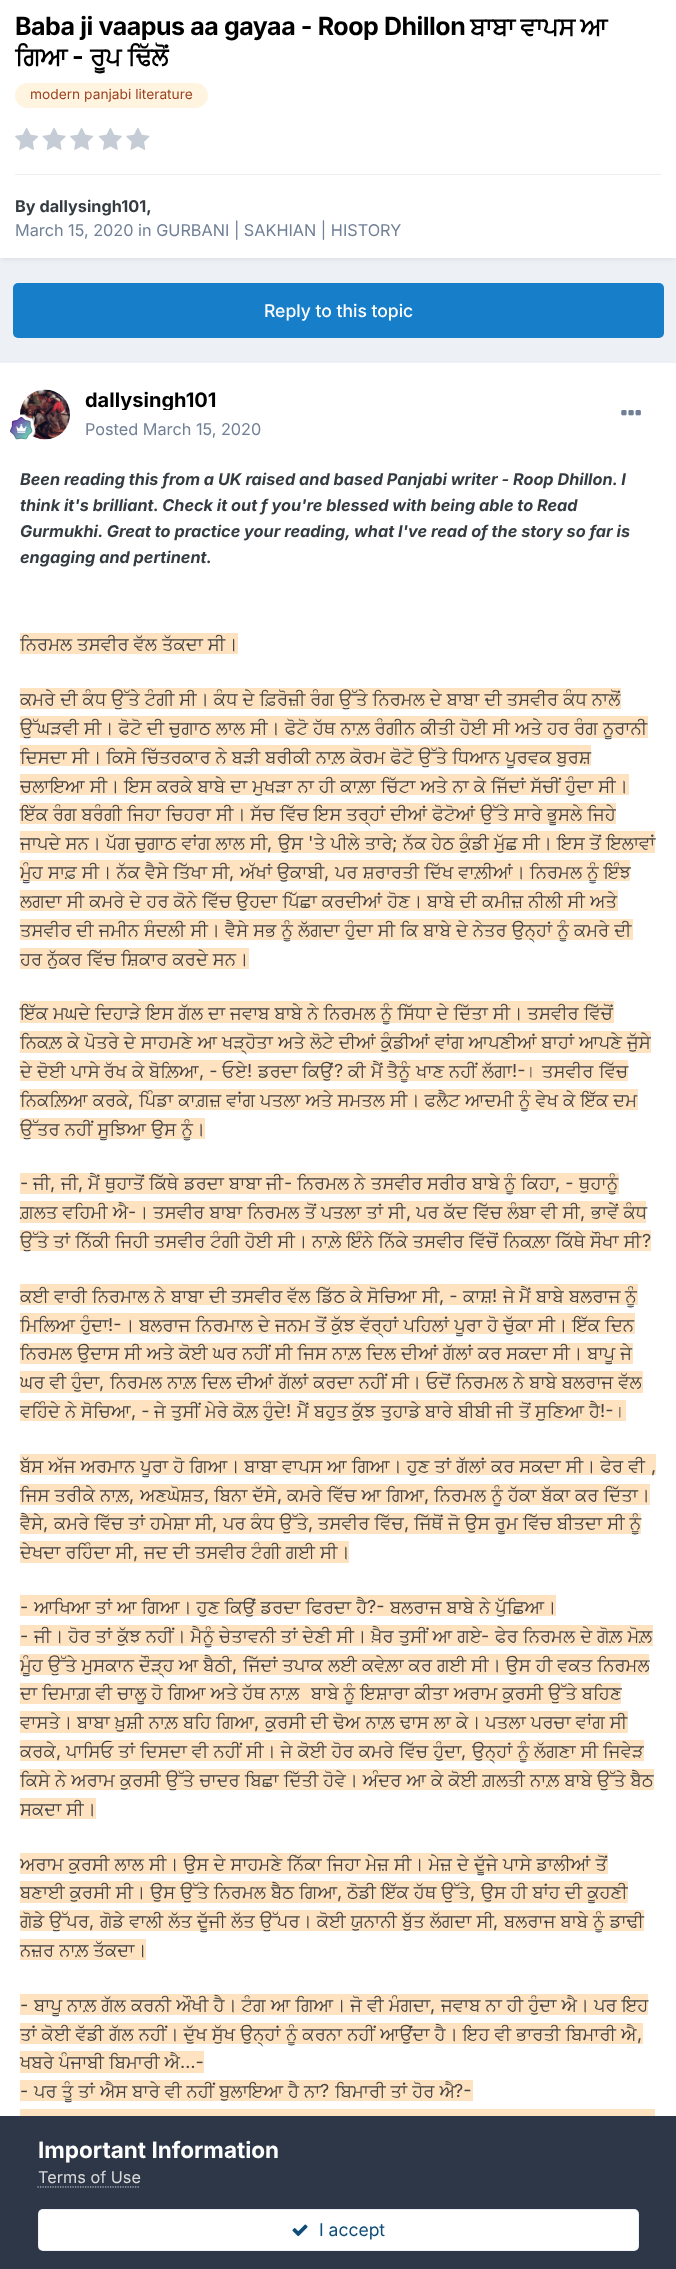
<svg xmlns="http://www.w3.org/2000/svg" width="676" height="2269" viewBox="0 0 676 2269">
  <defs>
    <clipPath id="clip1"><path d="M85 388h131v22H85z"/></clipPath>
  </defs>
  <rect width="100%" height="100%" fill="#edf0f4"/>
  <path d="M1 0h674v259H1z" fill="#2d37481a" filter="blur(2.5px)"/>
  <path d="M0 0h676v258H0z" fill="#fff"/>
  <rect x="15" y="83" width="193" height="25" rx="12.5" fill="#fff4df"/>
  <image x="15" y="127" width="24" height="23" href="img/1.png"/>
  <image x="42" y="127" width="24" height="23" href="img/2.png"/>
  <image x="70" y="127" width="24" height="23" href="img/1.png"/>
  <image x="98" y="127" width="24" height="23" href="img/3.png"/>
  <image x="126" y="127" width="24" height="23" href="img/4.png"/>
  <path d="M15 174h646v1H15z" fill="#efeff0"/>
  <rect x="13" y="283" width="651" height="55" rx="5" fill="#177ec9"/>
  <path d="M0 363h676v1753H0z" fill="#fff"/>
  <image x="20" y="389" width="50" height="51" href="img/5.png"/>
  <image x="10" y="414" width="26" height="26" href="img/6.png"/>
  <image x="621" y="410" width="20" height="6" href="img/7.png"/>
  <path d="M20 633h218v21H20z" fill="#ffe3c1"/>
  <path d="M20 688h601v21H20z" fill="#ffe3c1"/>
  <path d="M20 716h628v22H20z" fill="#ffe3c1"/>
  <path d="M20 745h571v21H20z" fill="#ffe3c1"/>
  <path d="M20 774h609v21H20z" fill="#ffe3c1"/>
  <path d="M20 803h596v21H20z" fill="#ffe3c1"/>
  <path d="M20 831h635v22H20z" fill="#ffe3c1"/>
  <path d="M20 860h610v21H20z" fill="#ffe3c1"/>
  <path d="M20 890h598v21H20z" fill="#ffe3c1"/>
  <path d="M20 919h613v21H20z" fill="#ffe3c1"/>
  <path d="M20 948h229v21H20z" fill="#ffe3c1"/>
  <path d="M20 1001h594v22H20z" fill="#ffe3c1"/>
  <path d="M20 1031h631v22H20z" fill="#ffe3c1"/>
  <path d="M20 1060h608v21H20z" fill="#ffe3c1"/>
  <path d="M20 1089h618v21H20z" fill="#ffe3c1"/>
  <path d="M20 1118h185v21H20z" fill="#ffe3c1"/>
  <path d="M20 1173h599v21H20z" fill="#ffe3c1"/>
  <path d="M20 1201h626v22H20z" fill="#ffe3c1"/>
  <path d="M20 1230h631v21H20z" fill="#ffe3c1"/>
  <path d="M20 1284h618v21H20z" fill="#ffe3c1"/>
  <path d="M20 1313h615v21H20z" fill="#ffe3c1"/>
  <path d="M20 1343h613v21H20z" fill="#ffe3c1"/>
  <path d="M20 1371h623v22H20z" fill="#ffe3c1"/>
  <path d="M20 1400h606v21H20z" fill="#ffe3c1"/>
  <path d="M20 1454h636v21H20z" fill="#ffe3c1"/>
  <path d="M20 1484h630v21H20z" fill="#ffe3c1"/>
  <path d="M20 1513h621v21H20z" fill="#ffe3c1"/>
  <path d="M20 1541h329v22H20z" fill="#ffe3c1"/>
  <path d="M20 1595h536v21H20z" fill="#ffe3c1"/>
  <path d="M20 1625h633v21H20z" fill="#ffe3c1"/>
  <path d="M20 1654h629v21H20z" fill="#ffe3c1"/>
  <path d="M20 1683h601v21H20z" fill="#ffe3c1"/>
  <path d="M20 1711h608v22H20z" fill="#ffe3c1"/>
  <path d="M20 1740h624v21H20z" fill="#ffe3c1"/>
  <path d="M20 1769h634v21H20z" fill="#ffe3c1"/>
  <path d="M20 1798h76v21H20z" fill="#ffe3c1"/>
  <path d="M20 1853h588v21H20z" fill="#ffe3c1"/>
  <path d="M20 1881h608v22H20z" fill="#ffe3c1"/>
  <path d="M20 1910h624v21H20z" fill="#ffe3c1"/>
  <path d="M20 1939h126v21H20z" fill="#ffe3c1"/>
  <path d="M20 1994h628v21H20z" fill="#ffe3c1"/>
  <path d="M20 2023h623v21H20z" fill="#ffe3c1"/>
  <path d="M20 2051h184v22H20z" fill="#ffe3c1"/>
  <path d="M20 2080h453v21H20z" fill="#ffe3c1"/>
  <path d="M20 2109h635v7H20z" fill="#ffe3c1"/>
  <path d="M0 2116h676v153H0z" fill="#2d3748"/>
  <path d="M37.5 2187H140" fill="none" stroke="#dadada" stroke-width="1.2" stroke-dasharray="1.25 1.25"/>
  <rect x="38" y="2209" width="601" height="42" rx="5" fill="#fff"/>
  <rect x="38.5" y="2209.5" width="600" height="41" rx="4.5" fill="none" stroke="#0e4c7912"/>
  <image x="292" y="2224" width="16" height="13" href="img/8.png"/>
  <text x="15" y="35" word-spacing="0.25" font-family="Inter" font-size="25" font-weight="bold" letter-spacing="-0.5" fill="#000">Baba ji vaapus aa gayaa - Roop Dhillon</text>
  <g font-family="FreeSans" font-size="25" font-weight="bold" letter-spacing="-0.5" fill="#000">
    <text x="470" y="35">ਬਾਬਾ ਵਾਪਸ ਆ</text>
    <text x="15" y="65">ਗਿਆ</text>
  </g>
  <text x="72" y="65" font-family="Inter" font-size="25" font-weight="bold" letter-spacing="-0.5" fill="#000">-</text>
  <text x="90" y="65" word-spacing="1" font-family="FreeSans" font-size="25" font-weight="bold" letter-spacing="-0.5" fill="#000">ਰੂਪ ਢਿੱਲੋਂ</text>
  <text x="30" y="99" font-family="Inter" font-size="13.75" fill="#9c4221">modern panjabi literature</text>
  <text x="15" y="212" font-family="Inter" font-size="16.25" font-weight="bold" fill="#353c41">By dallysingh101,</text>
  <text x="15" y="236" font-family="Inter" font-size="16.25" fill="#718096">March 15, 2020 in GURBANI | SAKHIAN | HISTORY</text>
  <text x="264" y="317" font-family="Inter" font-size="17.5" font-weight="500" fill="#fff">Reply to this topic</text>
  <g clip-path="url(#clip1)">
    <text x="85" y="407" font-family="Inter" font-size="20" font-weight="bold" fill="#000">dallysingh101</text>
  </g>
  <text x="85" y="435" font-family="Inter" font-size="16.25" fill="#718096">Posted March 15, 2020</text>
  <g font-family="Inter" font-size="16.25" font-weight="bold" font-style="italic" fill="#353c41">
    <text x="20" y="485">Been reading this from a UK raised and based Panjabi writer - Roop Dhillon. I</text>
    <text x="20" y="511">think it's brilliant. Check it out f you're blessed with being able to Read</text>
    <text x="20" y="537">Gurmukhi. Great to practice your reading, what I've read of the story so far is</text>
    <text x="20" y="563">engaging and pertinent.</text>
  </g>
  <g font-family="FreeSans" font-size="18" fill="#444">
    <text x="20" y="650" word-spacing="0.5">ਨਿਰਮਲ ਤਸਵੀਰ ਵੱਲ ਤੱਕਦਾ ਸੀ।</text>
    <text x="20" y="705" word-spacing="0.5">ਕਮਰੇ ਦੀ ਕੰਧ ਉੱਤੇ ਟੰਗੀ ਸੀ। ਕੰਧ ਦੇ ਫ਼ਿਰੋਜ਼ੀ ਰੰਗ ਉੱਤੇ ਨਿਰਮਲ ਦੇ ਬਾਬਾ ਦੀ ਤਸਵੀਰ ਕੰਧ ਨਾਲੋਂ</text>
    <text x="20" y="734" word-spacing="0.5">ਉੱਘੜਵੀ ਸੀ। ਫੋਟੋ ਦੀ ਚੁਗਾਠ ਲਾਲ ਸੀ। ਫੋਟੋ ਹੱਥ ਨਾਲ਼ ਰੰਗੀਨ ਕੀਤੀ ਹੋਈ ਸੀ ਅਤੇ ਹਰ ਰੰਗ ਨੂਰਾਨੀ</text>
    <text x="20" y="763" word-spacing="0.5">ਦਿਸਦਾ ਸੀ। ਕਿਸੇ ਚਿੱਤਰਕਾਰ ਨੇ ਬੜੀ ਬਰੀਕੀ ਨਾਲ਼ ਕੋਰਮ ਫੋਟੋ ਉੱਤੇ ਧਿਆਨ ਪੂਰਵਕ ਬੁਰਸ਼</text>
    <text x="20" y="792" word-spacing="0.5">ਚਲਾਇਆ ਸੀ। ਇਸ ਕਰਕੇ ਬਾਬੇ ਦਾ ਮੁਖੜਾ ਨਾ ਹੀ ਕਾਲ਼ਾ ਚਿੱਟਾ ਅਤੇ ਨਾ ਕੇ ਜਿੱਦਾਂ ਸੱਚੀਂ ਹੁੰਦਾ ਸੀ।</text>
    <text x="20" y="820" word-spacing="0.5">ਇੱਕ ਰੰਗ ਬਰੰਗੀ ਜਿਹਾ ਚਿਹਰਾ ਸੀ। ਸੱਚ ਵਿੱਚ ਇਸ ਤਰ੍ਹਾਂ ਦੀਆਂ ਫੋਟੋਆਂ ਉੱਤੇ ਸਾਰੇ ਭੂਸਲੇ ਜਿਹੇ</text>
    <text x="20" y="849" word-spacing="0.5">ਜਾਪਦੇ ਸਨ। ਪੱਗ ਚੁਗਾਠ ਵਾਂਗ ਲਾਲ ਸੀ</text>
    <text x="278" y="849">ਉਸ</text>
  </g>
  <text x="308" y="849" font-family="Inter" font-size="18" fill="#444">'</text>
  <text x="314" y="849" word-spacing="0.5" font-family="FreeSans" font-size="18" fill="#444">ਤੇ ਪੀਲੇ ਤਾਰੇ</text>
  <g font-family="Inter" font-size="18" fill="#444">
    <text x="267" y="849">,</text>
    <text x="392" y="849">;</text>
  </g>
  <g font-family="FreeSans" font-size="18" fill="#444">
    <text x="403" y="849" word-spacing="0.5">ਨੱਕ ਹੇਠ ਕੁੰਡੀ ਮੁੱਛ ਸੀ। ਇਸ ਤੋਂ ਇਲਾਵਾਂ</text>
    <text x="20" y="878" word-spacing="0.5">ਮੂੰਹ ਸਾਫ਼ ਸੀ। ਨੱਕ ਵੈਸੇ ਤਿੱਖਾ ਸੀ</text>
  </g>
  <text x="229" y="878" font-family="Inter" font-size="18" fill="#444">,</text>
  <text x="240" y="878" word-spacing="0.5" font-family="FreeSans" font-size="18" fill="#444">ਅੱਖਾਂ ਉਕਾਬੀ</text>
  <text x="324" y="878" font-family="Inter" font-size="18" fill="#444">,</text>
  <g font-family="FreeSans" font-size="18" fill="#444">
    <text x="335" y="878" word-spacing="0.5">ਪਰ ਸ਼ਰਾਰਤੀ ਦਿੱਖ ਵਾਲ਼ੀਆਂ। ਨਿਰਮਲ ਨੂੰ ਇੰਝ</text>
    <text x="20" y="907" word-spacing="0.5">ਲਗਦਾ ਸੀ ਕਮਰੇ ਦੇ ਹਰ ਕੋਨੇ ਵਿੱਚ ਉਹਦਾ ਪਿੱਛਾ ਕਰਦੀਆਂ ਹੋਣ। ਬਾਬੇ ਦੀ ਕਮੀਜ਼ ਨੀਲੀ ਸੀ ਅਤੇ</text>
    <text x="20" y="936" word-spacing="0.5">ਤਸਵੀਰ ਦੀ ਜਮੀਨ ਸੰਦਲੀ ਸੀ। ਵੈਸੇ ਸਭ ਨੂੰ ਲੱਗਦਾ ਹੁੰਦਾ ਸੀ ਕਿ ਬਾਬੇ ਦੇ ਨੇਤਰ ਉਨ੍ਹਾਂ ਨੂੰ ਕਮਰੇ ਦੀ</text>
    <text x="20" y="965" word-spacing="0.5">ਹਰ ਨੁੱਕਰ ਵਿੱਚ ਸ਼ਿਕਾਰ ਕਰਦੇ ਸਨ।</text>
    <text x="20" y="1019" word-spacing="0.5">ਇੱਕ ਮਘਦੇ ਦਿਹਾੜੇ ਇਸ ਗੱਲ ਦਾ ਜਵਾਬ ਬਾਬੇ ਨੇ ਨਿਰਮਲ ਨੂੰ ਸਿੱਧਾ ਦੇ ਦਿੱਤਾ ਸੀ। ਤਸਵੀਰ ਵਿੱਚੋਂ</text>
    <text x="20" y="1048" word-spacing="0.5">ਨਿਕਲ਼ ਕੇ ਪੋਤਰੇ ਦੇ ਸਾਹਮਣੇ ਆ ਖੜ੍ਹੋਤਾ ਅਤੇ ਲੋਟੇ ਦੀਆਂ ਕੁੰਡੀਆਂ ਵਾਂਗ ਆਪਣੀਆਂ ਬਾਹਾਂ ਆਪਣੇ ਜੁੱਸੇ</text>
    <text x="20" y="1077">ਦੇ</text>
    <text x="37" y="1077">ਦੋਈ</text>
    <text x="71" y="1077">ਪਾਸੇ</text>
    <text x="104" y="1077">ਰੱਖ</text>
    <text x="132" y="1077">ਕੇ</text>
    <text x="149" y="1077">ਬੋਲ਼ਿਆ</text>
  </g>
  <text x="199" y="1077" font-family="Inter" font-size="18" fill="#444">, -</text>
  <text x="222" y="1077" font-family="FreeSans" font-size="18" fill="#444">ਓਏ</text>
  <text x="247" y="1077" font-family="Inter" font-size="18" fill="#444">!</text>
  <g font-family="FreeSans" font-size="18" fill="#444">
    <text x="258" y="1077">ਡਰਦਾ</text>
    <text x="302" y="1077">ਕਿਉਂ</text>
  </g>
  <text x="334" y="1077" font-family="Inter" font-size="18" fill="#444">?</text>
  <g font-family="FreeSans" font-size="18" fill="#444">
    <text x="348" y="1077">ਕੀ</text>
    <text x="371" y="1077">ਮੈਂ</text>
    <text x="387" y="1077">ਤੈਨੂੰ</text>
    <text x="416" y="1077">ਖਾਣ</text>
    <text x="449" y="1077">ਨਹੀਂ</text>
    <text x="482" y="1077">ਲੱਗਾ</text>
  </g>
  <text x="512" y="1077" font-family="Inter" font-size="18" fill="#444">!-</text>
  <g font-family="FreeSans" font-size="18" fill="#444">
    <text x="525" y="1077">।</text>
    <text x="542" y="1077">ਤਸਵੀਰ</text>
    <text x="599" y="1077">ਵਿੱਚ</text>
    <text x="20" y="1106" word-spacing="0.5">ਨਿਕਲ਼ਿਆ ਕਰਕੇ</text>
  </g>
  <text x="128" y="1106" font-family="Inter" font-size="18" fill="#444">,</text>
  <g font-family="FreeSans" font-size="18" fill="#444">
    <text x="139" y="1106" word-spacing="0.5">ਪਿੰਡਾ ਕਾਗ਼ਜ਼ ਵਾਂਗ ਪਤਲਾ ਅਤੇ ਸਮਤਲ ਸੀ। ਫਲੈਟ ਆਦਮੀ ਨੂੰ ਵੇਖ ਕੇ ਇੱਕ ਦਮ</text>
    <text x="20" y="1135" word-spacing="0.5">ਉੱਤਰ ਨਹੀਂ ਸੂਝਿਆ ਉਸ ਨੂੰ।</text>
  </g>
  <text x="20" y="1189" font-family="Inter" font-size="18" fill="#444">-</text>
  <text x="33" y="1189" font-family="FreeSans" font-size="18" fill="#444">ਜੀ</text>
  <text x="50" y="1189" font-family="Inter" font-size="18" fill="#444">,</text>
  <g font-family="FreeSans" font-size="18" fill="#444">
    <text x="61" y="1189">ਜੀ</text>
    <text x="184" y="1189">ਡਰਦਾ</text>
    <text x="229" y="1189">ਬਾਬਾ</text>
    <text x="266" y="1189">ਜੀ</text>
  </g>
  <text x="284" y="1189" font-family="Inter" font-size="18" fill="#444">-</text>
  <g font-family="FreeSans" font-size="18" fill="#444">
    <text x="297" y="1189">ਨਿਰਮਲ</text>
    <text x="354" y="1189">ਨੇ</text>
    <text x="371" y="1189">ਤਸਵੀਰ</text>
    <text x="427" y="1189">ਸਰੀਰ</text>
    <text x="472" y="1189">ਬਾਬੇ</text>
    <text x="504" y="1189">ਨੂੰ</text>
    <text x="521" y="1189">ਕਿਹਾ</text>
  </g>
  <text x="555" y="1189" font-family="Inter" font-size="18" fill="#444">, -</text>
  <text x="579" y="1189" font-family="FreeSans" font-size="18" fill="#444">ਥੁਹਾਨੂੰ</text>
  <text x="78" y="1189" font-family="Inter" font-size="18" fill="#444">,</text>
  <g font-family="FreeSans" font-size="18" fill="#444">
    <text x="88" y="1189">ਮੈਂ</text>
    <text x="105" y="1189">ਥੁਹਾਤੋਂ</text>
    <text x="149" y="1189">ਕਿੱਥੇ</text>
    <text x="20" y="1218" word-spacing="0.5">ਗ਼ਲਤ ਵਹਿਮੀ ਐ</text>
  </g>
  <text x="128" y="1218" font-family="Inter" font-size="18" fill="#444">-</text>
  <g font-family="FreeSans" font-size="18" fill="#444">
    <text x="136" y="1218" word-spacing="0.5">। ਤਸਵੀਰ ਬਾਬਾ ਨਿਰਮਲ ਤੋਂ ਪਤਲਾ ਤਾਂ ਸੀ</text>
    <text x="416" y="1218" word-spacing="0.5">ਪਰ ਕੱਦ ਵਿੱਚ ਲੰਬਾ ਵੀ ਸੀ</text>
    <text x="591" y="1218" word-spacing="0.5">ਭਾਵੇਂ ਕੰਧ</text>
  </g>
  <g font-family="Inter" font-size="18" fill="#444">
    <text x="406" y="1218">,</text>
    <text x="580" y="1218">,</text>
  </g>
  <text x="20" y="1247" word-spacing="0.5" font-family="FreeSans" font-size="18" fill="#444">ਉੱਤੇ ਤਾਂ ਨਿੱਕੀ ਜਿਹੀ ਤਸਵੀਰ ਟੰਗੀ ਹੋਈ ਸੀ। ਨਾਲ਼ੇ ਇੰਨੇ ਨਿੱਕੇ ਤਸਵੀਰ ਵਿੱਚੋਂ ਨਿਕਲ਼ਾ ਕਿੱਥੇ ਸੌਖਾ ਸੀ</text>
  <text x="642" y="1247" font-family="Inter" font-size="18" fill="#444">?</text>
  <g font-family="FreeSans" font-size="18" fill="#444">
    <text x="20" y="1302">ਕਈ</text>
    <text x="54" y="1302">ਵਾਰੀ</text>
    <text x="92" y="1302">ਨਿਰਮਾਲ</text>
    <text x="154" y="1302">ਨੇ</text>
    <text x="209" y="1302">ਦੀ</text>
    <text x="231" y="1302">ਤਸਵੀਰ</text>
    <text x="287" y="1302">ਵੱਲ</text>
    <text x="316" y="1302">ਡਿੱਠ</text>
    <text x="350" y="1302">ਕੇ</text>
    <text x="367" y="1302">ਸੋਚਿਆ</text>
    <text x="422" y="1302">ਸੀ</text>
    <text x="536" y="1302">ਬਾਬੇ</text>
    <text x="625" y="1302">ਨੂੰ</text>
    <text x="171" y="1302">ਬਾਬਾ</text>
  </g>
  <text x="439" y="1302" font-family="Inter" font-size="18" fill="#444">, -</text>
  <text x="463" y="1302" font-family="FreeSans" font-size="18" fill="#444">ਕਾਸ਼</text>
  <text x="492" y="1302" font-family="Inter" font-size="18" fill="#444">!</text>
  <g font-family="FreeSans" font-size="18" fill="#444">
    <text x="503" y="1302">ਜੇ</text>
    <text x="519" y="1302">ਮੈਂ</text>
    <text x="569" y="1302">ਬਲਰਾਜ</text>
    <text x="20" y="1331" word-spacing="0.5">ਮਿਲਿਆ ਹੁੰਦਾ</text>
  </g>
  <text x="108" y="1331" font-family="Inter" font-size="18" fill="#444">!-</text>
  <g font-family="FreeSans" font-size="18" fill="#444">
    <text x="122" y="1331" word-spacing="0.5">। ਬਲਰਾਜ ਨਿਰਮਾਲ ਦੇ ਜਨਮ ਤੋਂ ਕੁੱਝ ਵੱਰ੍ਹਾਂ ਪਹਿਲਾਂ ਪੂਰਾ ਹੋ ਚੁੱਕਾ ਸੀ। ਇੱਕ ਦਿਨ</text>
    <text x="20" y="1359" word-spacing="0.5">ਨਿਰਮਲ ਉਦਾਸ ਸੀ ਅਤੇ ਕੋਈ ਘਰ ਨਹੀਂ ਸੀ ਜਿਸ ਨਾਲ਼ ਦਿਲ ਦੀਆਂ ਗੱਲਾਂ ਕਰ ਸਕਦਾ ਸੀ। ਬਾਪੂ ਜੇ</text>
    <text x="20" y="1388" word-spacing="0.5">ਘਰ ਵੀ ਹੁੰਦਾ</text>
  </g>
  <text x="99" y="1388" font-family="Inter" font-size="18" fill="#444">,</text>
  <g font-family="FreeSans" font-size="18" fill="#444">
    <text x="110" y="1388" word-spacing="0.5">ਨਿਰਮਲ ਨਾਲ਼ ਦਿਲ ਦੀਆਂ ਗੱਲਾਂ ਕਰਦਾ ਨਹੀਂ ਸੀ। ਓਦੋਂ ਨਿਰਮਲ ਨੇ ਬਾਬੇ ਬਲਰਾਜ ਵੱਲ</text>
    <text x="20" y="1417">ਵਹਿੰਦੇ</text>
    <text x="65" y="1417">ਨੇ</text>
    <text x="81" y="1417">ਸੋਚਿਆ</text>
    <text x="205" y="1417">ਮੇਰੇ</text>
    <text x="233" y="1417">ਕੋਲ਼</text>
    <text x="263" y="1417">ਹੁੰਦੇ</text>
    <text x="425" y="1417">ਬਾਰੇ</text>
    <text x="458" y="1417">ਬੀਬੀ</text>
    <text x="496" y="1417">ਜੀ</text>
    <text x="519" y="1417">ਤੋਂ</text>
    <text x="535" y="1417">ਸੁਣਿਆ</text>
    <text x="589" y="1417">ਹੈ</text>
  </g>
  <text x="131" y="1417" font-family="Inter" font-size="18" fill="#444">, -</text>
  <g font-family="FreeSans" font-size="18" fill="#444">
    <text x="154" y="1417">ਜੇ</text>
    <text x="171" y="1417">ਤੁਸੀਂ</text>
  </g>
  <text x="286" y="1417" font-family="Inter" font-size="18" fill="#444">!</text>
  <g font-family="FreeSans" font-size="18" fill="#444">
    <text x="297" y="1417">ਮੈਂ</text>
    <text x="314" y="1417">ਬਹੁਤ</text>
    <text x="352" y="1417">ਕੁੱਝ</text>
    <text x="381" y="1417">ਤੁਹਾਡੇ</text>
  </g>
  <text x="600" y="1417" font-family="Inter" font-size="18" fill="#444">!-</text>
  <g font-family="FreeSans" font-size="18" fill="#444">
    <text x="614" y="1417">।</text>
    <text x="20" y="1472" word-spacing="0.5">ਬੱਸ ਅੱਜ ਅਰਮਾਨ ਪੂਰਾ ਹੋ ਗਿਆ। ਬਾਬਾ ਵਾਪਸ ਆ ਗਿਆ। ਹੁਣ ਤਾਂ ਗੱਲਾਂ ਕਰ ਸਕਦਾ ਸੀ। ਫੇਰ ਵੀ</text>
  </g>
  <text x="651" y="1472" font-family="Inter" font-size="18" fill="#444">,</text>
  <text x="20" y="1501" word-spacing="0.5" font-family="FreeSans" font-size="18" fill="#444">ਜਿਸ ਤਰੀਕੇ ਨਾਲ਼</text>
  <text x="129" y="1501" font-family="Inter" font-size="18" fill="#444">,</text>
  <text x="140" y="1501" font-family="FreeSans" font-size="18" fill="#444">ਅਣਘੋਸ਼ਤ</text>
  <text x="204" y="1501" font-family="Inter" font-size="18" fill="#444">,</text>
  <text x="214" y="1501" word-spacing="0.5" font-family="FreeSans" font-size="18" fill="#444">ਬਿਨਾ ਦੱਸੇ</text>
  <text x="277" y="1501" font-family="Inter" font-size="18" fill="#444">,</text>
  <text x="287" y="1501" word-spacing="0.5" font-family="FreeSans" font-size="18" fill="#444">ਕਮਰੇ ਵਿੱਚ ਆ ਗਿਆ</text>
  <text x="424" y="1501" font-family="Inter" font-size="18" fill="#444">,</text>
  <g font-family="FreeSans" font-size="18" fill="#444">
    <text x="434" y="1501" word-spacing="0.5">ਨਿਰਮਲ ਨੂੰ ਹੱਕਾ ਬੱਕਾ ਕਰ ਦਿੱਤਾ।</text>
    <text x="20" y="1529">ਵੈਸੇ</text>
  </g>
  <text x="43" y="1529" font-family="Inter" font-size="18" fill="#444">,</text>
  <text x="54" y="1529" word-spacing="0.5" font-family="FreeSans" font-size="18" fill="#444">ਕਮਰੇ ਵਿੱਚ ਤਾਂ ਹਮੇਸ਼ਾ ਸੀ</text>
  <text x="212" y="1529" font-family="Inter" font-size="18" fill="#444">,</text>
  <text x="223" y="1529" word-spacing="0.5" font-family="FreeSans" font-size="18" fill="#444">ਪਰ ਕੰਧ ਉੱਤੇ</text>
  <text x="308" y="1529" font-family="Inter" font-size="18" fill="#444">,</text>
  <text x="318" y="1529" word-spacing="0.5" font-family="FreeSans" font-size="18" fill="#444">ਤਸਵੀਰ ਵਿੱਚ</text>
  <text x="404" y="1529" font-family="Inter" font-size="18" fill="#444">,</text>
  <g font-family="FreeSans" font-size="18" fill="#444">
    <text x="414" y="1529" word-spacing="0.5">ਜਿੱਥੋਂ ਜੋ ਉਸ ਰੂਮ ਵਿੱਚ ਬੀਤਦਾ ਸੀ ਨੂੰ</text>
    <text x="20" y="1558" word-spacing="0.5">ਦੇਖਦਾ ਰਹਿੰਦਾ ਸੀ</text>
  </g>
  <text x="133" y="1558" font-family="Inter" font-size="18" fill="#444">,</text>
  <text x="144" y="1558" word-spacing="0.5" font-family="FreeSans" font-size="18" fill="#444">ਜਦ ਦੀ ਤਸਵੀਰ ਟੰਗੀ ਗਈ ਸੀ।</text>
  <text x="20" y="1613" font-family="Inter" font-size="18" fill="#444">-</text>
  <text x="34" y="1613" word-spacing="0.5" font-family="FreeSans" font-size="18" fill="#444">ਆਖਿਆ ਤਾਂ ਆ ਗਿਆ। ਹੁਣ ਕਿਉਂ ਡਰਦਾ ਫਿਰਦਾ ਹੈ</text>
  <text x="367" y="1613" font-family="Inter" font-size="18" fill="#444">?-</text>
  <text x="390" y="1613" word-spacing="0.5" font-family="FreeSans" font-size="18" fill="#444">ਬਲਰਾਜ ਬਾਬੇ ਨੇ ਪੁੱਛਿਆ।</text>
  <text x="20" y="1642" font-family="Inter" font-size="18" fill="#444">-</text>
  <text x="34" y="1642" word-spacing="0.5" font-family="FreeSans" font-size="18" fill="#444">ਜੀ। ਹੋਰ ਤਾਂ ਕੁੱਝ ਨਹੀਂ। ਮੈਨੂੰ ਚੇਤਾਵਨੀ ਤਾਂ ਦੇਣੀ ਸੀ। ਖ਼ੈਰ ਤੁਸੀਂ ਆ ਗਏ</text>
  <text x="481" y="1642" font-family="Inter" font-size="18" fill="#444">-</text>
  <g font-family="FreeSans" font-size="18" fill="#444">
    <text x="495" y="1642" word-spacing="0.5">ਫੇਰ ਨਿਰਮਲ ਦੇ ਗੋਲ਼ ਮੋਲ਼</text>
    <text x="20" y="1671" word-spacing="0.5">ਮੂੰਹ ਉੱਤੇ ਮੁਸਕਾਨ ਦੌੜ੍ਹ ਆ ਬੈਠੀ</text>
  </g>
  <text x="232" y="1671" font-family="Inter" font-size="18" fill="#444">,</text>
  <g font-family="FreeSans" font-size="18" fill="#444">
    <text x="243" y="1671" word-spacing="0.5">ਜਿੱਦਾਂ ਤਪਾਕ ਲਈ ਕਵੇਲ਼ਾ ਕਰ ਗਈ ਸੀ। ਉਸ ਹੀ ਵਕਤ ਨਿਰਮਲ</text>
    <text x="20" y="1699" word-spacing="0.5">ਦਾ ਦਿਮਾਗ਼ ਵੀ ਚਾਲੂ ਹੋ ਗਿਆ ਅਤੇ ਹੱਥ ਨਾਲ਼</text>
    <text x="311" y="1699" word-spacing="0.5">ਬਾਬੇ ਨੂੰ ਇਸ਼ਾਰਾ ਕੀਤਾ ਅਰਾਮ ਕੁਰਸੀ ਉੱਤੇ ਬਹਿਣ</text>
    <text x="20" y="1728" word-spacing="0.5">ਵਾਸਤੇ। ਬਾਬਾ ਖ਼ੁਸ਼ੀ ਨਾਲ਼ ਬਹਿ ਗਿਆ</text>
  </g>
  <text x="254" y="1728" font-family="Inter" font-size="18" fill="#444">,</text>
  <g font-family="FreeSans" font-size="18" fill="#444">
    <text x="265" y="1728" word-spacing="0.5">ਕੁਰਸੀ ਦੀ ਢੋਅ ਨਾਲ਼ ਢਾਸ ਲਾ ਕੇ। ਪਤਲਾ ਪਰਚਾ ਵਾਂਗ ਸੀ</text>
    <text x="20" y="1757">ਕਰਕੇ</text>
  </g>
  <text x="56" y="1757" font-family="Inter" font-size="18" fill="#444">,</text>
  <text x="66" y="1757" word-spacing="0.5" font-family="FreeSans" font-size="18" fill="#444">ਪਾਸਿਓ ਤਾਂ ਦਿਸਦਾ ਵੀ ਨਹੀਂ ਸੀ। ਜੇ ਕੋਈ ਹੋਰ ਕਮਰੇ ਵਿੱਚ ਹੁੰਦਾ</text>
  <text x="461" y="1757" font-family="Inter" font-size="18" fill="#444">,</text>
  <g font-family="FreeSans" font-size="18" fill="#444">
    <text x="472" y="1757" word-spacing="0.5">ਉਨ੍ਹਾਂ ਨੂੰ ਲੱਗਣਾ ਸੀ ਜਿਵੇੜ</text>
    <text x="20" y="1786" word-spacing="0.5">ਕਿਸੇ ਨੇ ਅਰਾਮ ਕੁਰਸੀ ਉੱਤੇ ਚਾਦਰ ਬਿਛਾ ਦਿੱਤੀ ਹੋਵੇ। ਅੰਦਰ ਆ ਕੇ ਕੋਈ ਗ਼ਲਤੀ ਨਾਲ਼ ਬਾਬੇ ਉੱਤੇ ਬੈਠ</text>
    <text x="20" y="1815" word-spacing="0.5">ਸਕਦਾ ਸੀ।</text>
    <text x="20" y="1870" word-spacing="0.5">ਅਰਾਮ ਕੁਰਸੀ ਲਾਲ ਸੀ। ਉਸ ਦੇ ਸਾਹਮਣੇ ਨਿੱਕਾ ਜਿਹਾ ਮੇਜ਼ ਸੀ। ਮੇਜ਼ ਦੇ ਦੂੱਜੇ ਪਾਸੇ ਡਾਲੀਆਂ ਤੋਂ</text>
    <text x="20" y="1898" word-spacing="0.5">ਬਣਾਈ ਕੁਰਸੀ ਸੀ। ਉਸ ਉੱਤੇ ਨਿਰਮਲ ਬੈਠ ਗਿਆ</text>
    <text x="481" y="1898" word-spacing="0.5">ਉਸ ਹੀ ਬਾਂਹ ਦੀ ਕੂਹਣੀ</text>
  </g>
  <text x="337" y="1898" font-family="Inter" font-size="18" fill="#444">,</text>
  <text x="347" y="1898" word-spacing="0.5" font-family="FreeSans" font-size="18" fill="#444">ਠੋਡੀ ਇੱਕ ਹੱਥ ਉੱਤੇ</text>
  <text x="470" y="1898" font-family="Inter" font-size="18" fill="#444">,</text>
  <g font-family="FreeSans" font-size="18" fill="#444">
    <text x="20" y="1927" word-spacing="0.5">ਗੋਡੇ ਉੱਪਰ</text>
    <text x="504" y="1927" word-spacing="0.5">ਬਲਰਾਜ ਬਾਬੇ ਨੂੰ ਡਾਢੀ</text>
  </g>
  <text x="89" y="1927" font-family="Inter" font-size="18" fill="#444">,</text>
  <text x="100" y="1927" word-spacing="0.5" font-family="FreeSans" font-size="18" fill="#444">ਗੋਡੇ ਵਾਲੀ ਲੱਤ ਦੂੱਜੀ ਲੱਤ ਉੱਪਰ। ਕੋਈ ਯੁਨਾਨੀ ਬੁੱਤ ਲੱਗਦਾ ਸੀ</text>
  <text x="493" y="1927" font-family="Inter" font-size="18" fill="#444">,</text>
  <text x="20" y="1956" word-spacing="0.5" font-family="FreeSans" font-size="18" fill="#444">ਨਜ਼ਰ ਨਾਲ਼ ਤੱਕਦਾ।</text>
  <text x="20" y="2011" font-family="Inter" font-size="18" fill="#444">-</text>
  <g font-family="FreeSans" font-size="18" fill="#444">
    <text x="34" y="2011" word-spacing="0.5">ਬਾਪੂ ਨਾਲ਼ ਗੱਲ ਕਰਨੀ ਔਖੀ ਹੈ। ਟੰਗ ਆ ਗਿਆ। ਜੋ ਵੀ ਮੰਗਦਾ</text>
    <text x="441" y="2011" word-spacing="0.5">ਜਵਾਬ ਨਾ ਹੀ ਹੁੰਦਾ ਐ। ਪਰ ਇਹ</text>
  </g>
  <text x="430" y="2011" font-family="Inter" font-size="18" fill="#444">,</text>
  <text x="20" y="2040" word-spacing="0.5" font-family="FreeSans" font-size="18" fill="#444">ਤਾਂ ਕੋਈ ਵੱਡੀ ਗੱਲ ਨਹੀਂ। ਦੁੱਖ ਸੁੱਖ ਉਨ੍ਹਾਂ ਨੂੰ ਕਰਨਾ ਨਹੀਂ ਆਉਂਦਾ ਹੈ। ਇਹ ਵੀ ਭਾਰਤੀ ਬਿਮਾਰੀ ਐ</text>
  <text x="637" y="2040" font-family="Inter" font-size="18" fill="#444">,</text>
  <text x="20" y="2068" word-spacing="0.5" font-family="FreeSans" font-size="18" fill="#444">ਖਬਰੇ ਪੰਜਾਬੀ ਬਿਮਾਰੀ ਐ</text>
  <g font-family="Inter" font-size="18" fill="#444">
    <text x="180" y="2068">…-</text>
    <text x="20" y="2097">-</text>
  </g>
  <text x="34" y="2097" word-spacing="0.5" font-family="FreeSans" font-size="18" fill="#444">ਪਰ ਤੂੰ ਤਾਂ ਐਸ ਬਾਰੇ ਵੀ ਨਹੀਂ ਬੁਲਾਇਆ ਹੈ ਨਾ</text>
  <text x="320" y="2097" font-family="Inter" font-size="18" fill="#444">?</text>
  <text x="335" y="2097" word-spacing="0.5" font-family="FreeSans" font-size="18" fill="#444">ਬਿਮਾਰੀ ਤਾਂ ਹੋਰ ਐ</text>
  <text x="454" y="2097" font-family="Inter" font-size="18" fill="#444">?-</text>
  <text x="38" y="2158" font-family="Inter" font-size="22.5" font-weight="bold" fill="#fff">Important Information</text>
  <text x="38" y="2183" font-family="Inter" font-size="16.25" fill="#dadada">Terms of Use</text>
  <text x="319" y="2236" font-family="Inter" font-size="17.5" fill="#0e4c79">I accept</text>
</svg>
